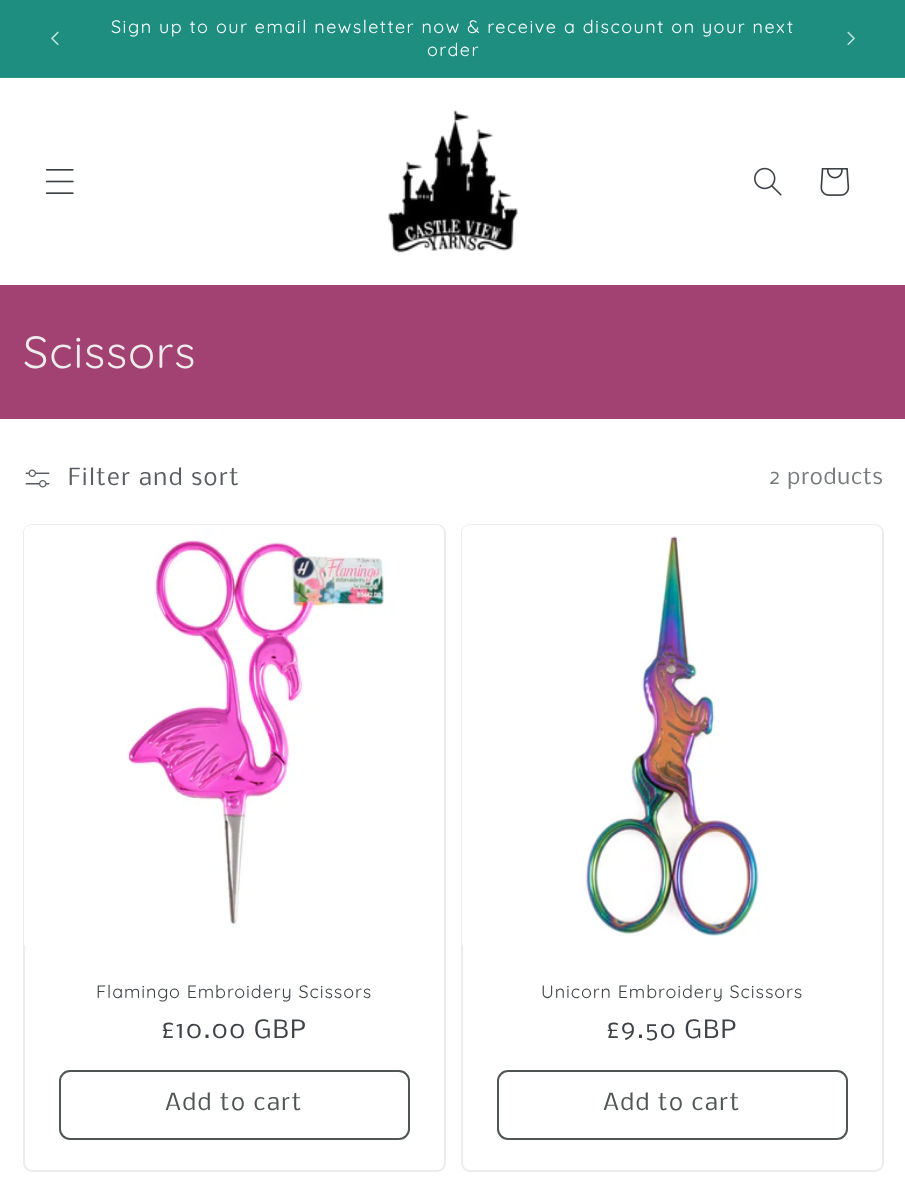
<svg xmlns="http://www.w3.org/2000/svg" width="905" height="1192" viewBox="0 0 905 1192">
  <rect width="100%" height="100%" fill="#fff"/>
  <path d="M0 0h905v77H0z" fill="#1d8e7f"/>
  <path d="M0 77h905v1H0z" fill="#2f9789"/>
  <image x="51" y="31" width="8" height="15" href="img/1.png"/>
  <image x="847" y="31" width="8" height="15" href="img/2.png"/>
  <image x="45" y="169" width="29" height="25" href="img/3.png"/>
  <image x="388" y="110" width="130" height="143" href="img/4.png"/>
  <image x="754" y="167" width="28" height="29" href="img/5.png"/>
  <image x="820" y="168" width="30" height="28" href="img/6.png"/>
  <path d="M0 285h905v134H0z" fill="#a24273"/>
  <image x="25" y="469" width="25" height="19" href="img/7.png"/>
  <rect x="24" y="525" width="421" height="646" rx="8" fill="none" stroke="#ececed" stroke-width="2"/>
  <image x="24" y="525" width="420" height="420" href="img/8.png"/>
  <rect x="60" y="1071" width="349" height="68" rx="10" fill="none" stroke="#505655" stroke-width="2"/>
  <rect x="462" y="525" width="421" height="646" rx="8" fill="none" stroke="#ececed" stroke-width="2"/>
  <image x="462" y="525" width="420" height="420" href="img/9.png"/>
  <rect x="498" y="1071" width="349" height="68" rx="10" fill="none" stroke="#505655" stroke-width="2"/>
  <g font-family="Quicksand" font-size="18" letter-spacing="1.5" fill="#fff">
    <text x="111" y="33">Sign up to our email newsletter now &amp; receive a discount on your next</text>
    <text x="427" y="56">order</text>
  </g>
  <text x="23" y="368" font-family="Quicksand" font-size="45" letter-spacing="0.9" fill="#efecec">Scissors</text>
  <text x="68" y="485" font-family="Nobile" font-size="22.5" letter-spacing="1.5" fill="#5a5e62">Filter and sort</text>
  <text x="769" y="484" font-family="Nobile" font-size="21" letter-spacing="0.9" fill="#777b7e">2 products</text>
  <text x="96" y="998" font-family="Quicksand" font-size="18" letter-spacing="0.9" fill="#3d4246">Flamingo Embroidery Scissors</text>
  <text x="161" y="1038" font-family="Nobile" font-size="24" letter-spacing="1.5" fill="#3d4246">£10.00 GBP</text>
  <text x="165" y="1110" font-family="Nobile" font-size="22.5" letter-spacing="1.5" fill="#505655">Add to cart</text>
  <text x="541" y="998" font-family="Quicksand" font-size="18" letter-spacing="0.9" fill="#3d4246">Unicorn Embroidery Scissors</text>
  <text x="606" y="1038" font-family="Nobile" font-size="24" letter-spacing="1.5" fill="#3d4246">£9.50 GBP</text>
  <text x="603" y="1110" font-family="Nobile" font-size="22.5" letter-spacing="1.5" fill="#505655">Add to cart</text>
</svg>
